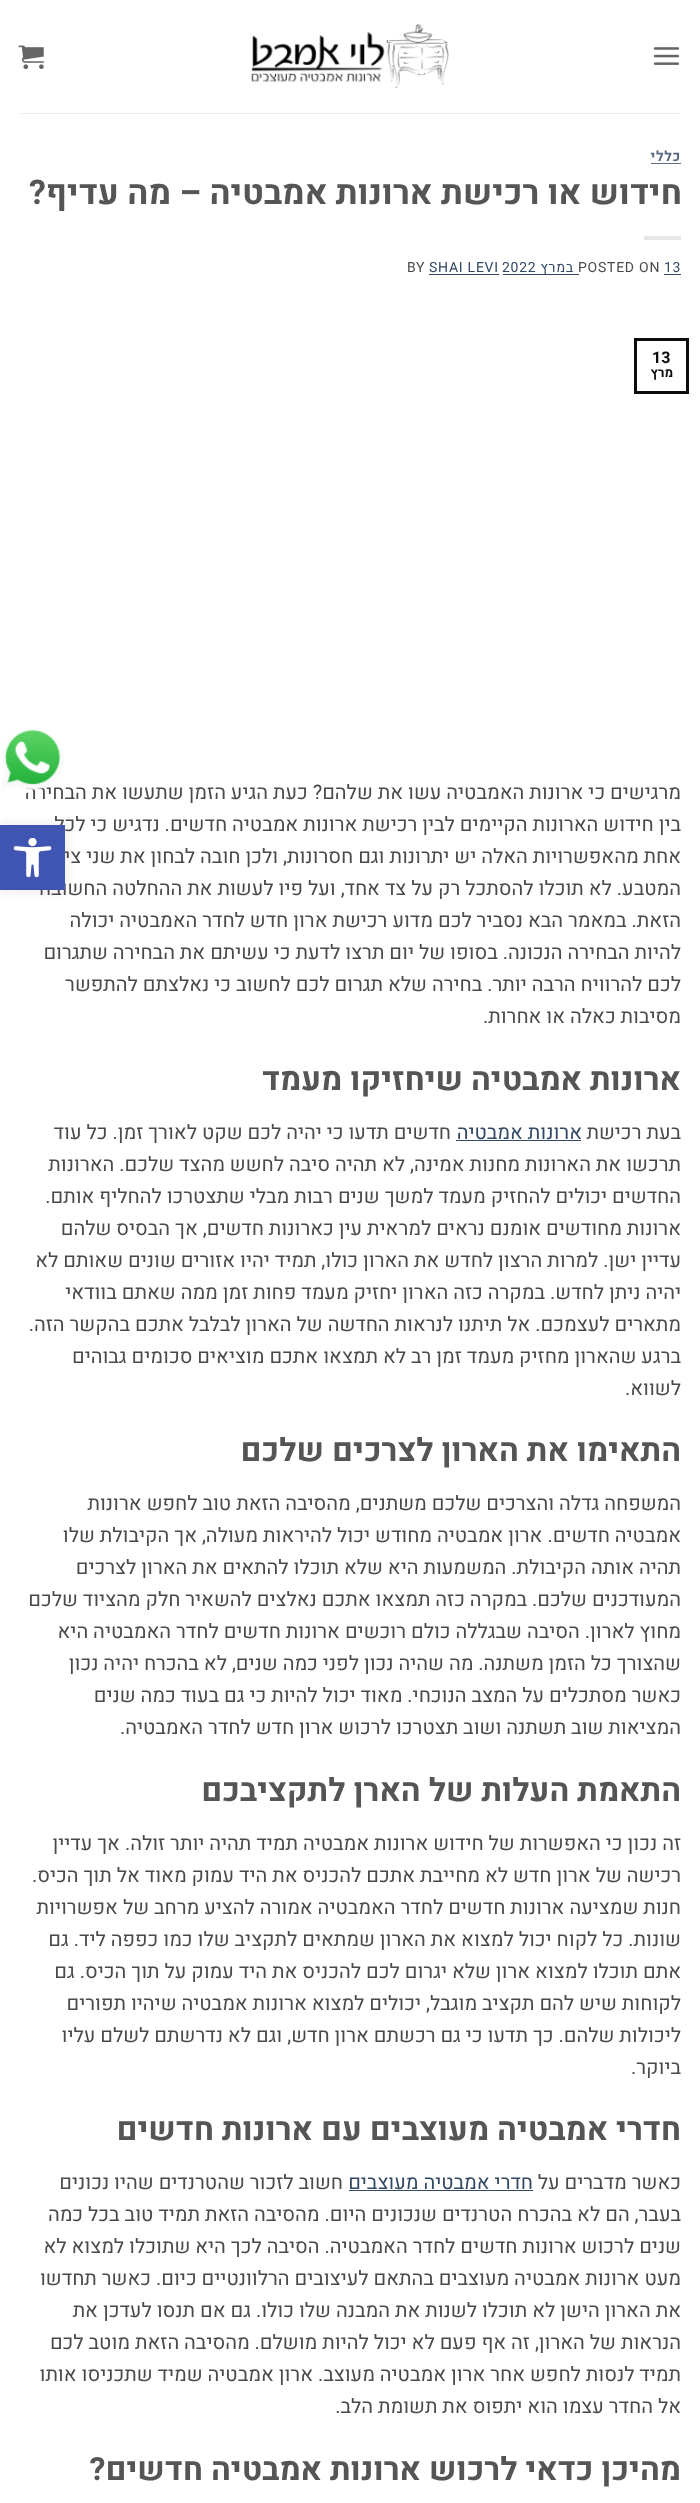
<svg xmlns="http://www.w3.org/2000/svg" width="700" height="2503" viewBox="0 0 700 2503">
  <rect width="100%" height="100%" fill="#fff"/>
  <image x="653" y="47" width="27" height="18" href="img/1.png"/>
  <image x="251" y="24" width="198" height="64" href="img/2.png"/>
  <image x="18" y="45" width="26" height="24" href="img/3.png"/>
  <path d="M19 113h662v1H19z" fill="#ededed"/>
  <path d="M651 163h30v1H651z" fill="#5c6d81"/>
  <path d="M644 236h37v4H644z" fill="#e6e6e6"/>
  <path d="M664 274h17v1H664z" fill="#334862"/>
  <path d="M503 274h76v1H503z" fill="#334862"/>
  <path d="M429 274h70v1H429z" fill="#334862"/>
  <path d="M635.5 339.5h52v53H635.5z" fill="none" stroke="#0b0c0d" stroke-width="3"/>
  <path d="M456 1140h125v1H456z" fill="#334862"/>
  <path d="M349 2190h184v1H349z" fill="#334862"/>
  <path d="M0 825h65v65H0z" fill="#0000001a" filter="blur(6px)"/>
  <text x="681" y="161" font-family="Heebo" font-size="14" font-weight="bold" letter-spacing="0.75" direction="rtl" fill="#5c6d81">כללי</text>
  <text x="682" y="204" font-family="Heebo" font-size="34" font-weight="bold" direction="rtl" fill="#555">חידוש או רכישת ארונות אמבטיה – מה עדיף?</text>
  <text x="664" y="272" font-family="Heebo" font-size="14" letter-spacing="0.75" fill="#334862">13</text>
  <text x="578" y="272" font-family="Heebo" font-size="14" letter-spacing="0.75" fill="#4a4a4a">POSTED ON</text>
  <text x="574" y="272" font-family="Heebo" font-size="14" letter-spacing="0.75" direction="rtl" fill="#334862">במרץ</text>
  <g font-family="Heebo" font-size="14" letter-spacing="0.75" fill="#334862">
    <text x="502" y="272">2022</text>
    <text x="429" y="272">SHAI LEVI</text>
  </g>
  <text x="407" y="272" font-family="Heebo" font-size="14" letter-spacing="0.75" fill="#4a4a4a">BY</text>
  <text x="652" y="363" font-family="Heebo" font-size="16" font-weight="bold" fill="#0b0c0d">13</text>
  <text x="673" y="377" font-family="Heebo" font-size="13" font-weight="bold" direction="rtl" fill="#0b0c0d">מרץ</text>
  <g font-family="Heebo" font-size="20" direction="rtl" fill="#4a4a4a">
    <text x="681" y="799">מרגישים כי ארונות האמבטיה עשו את שלהם? כעת הגיע הזמן שתעשו את הבחירה</text>
    <text x="681" y="831">בין חידוש הארונות הקיימים לבין רכישת ארונות אמבטיה חדשים. נדגיש כי לכל</text>
    <text x="681" y="863">אחת מהאפשרויות האלה יש יתרונות וגם חסרונות, ולכן חובה לבחון את שני צידי</text>
    <text x="681" y="895">המטבע. לא תוכלו להסתכל רק על צד אחד, ועל פיו לעשות את ההחלטה החשובה</text>
    <text x="681" y="927">הזאת. במאמר הבא נסביר לכם מדוע רכישת ארון חדש לחדר האמבטיה יכולה</text>
    <text x="681" y="959">להיות הבחירה הנכונה. בסופו של יום תרצו לדעת כי עשיתם את הבחירה שתגרום</text>
    <text x="681" y="991">לכם להרוויח הרבה יותר. בחירה שלא תגרום לכם לחשוב כי נאלצתם להתפשר</text>
    <text x="681" y="1023">מסיבות כאלה או אחרות.</text>
  </g>
  <text x="681" y="1090" font-family="Heebo" font-size="32" font-weight="bold" direction="rtl" fill="#555">ארונות אמבטיה שיחזיקו מעמד</text>
  <text x="681" y="1139" font-family="Heebo" font-size="20" direction="rtl" fill="#4a4a4a">בעת רכישת</text>
  <text x="582" y="1139" font-family="Heebo" font-size="20" direction="rtl" fill="#334862">ארונות אמבטיה</text>
  <g font-family="Heebo" font-size="20" direction="rtl" fill="#4a4a4a">
    <text x="451" y="1139">חדשים תדעו כי יהיה לכם שקט לאורך זמן. כל עוד</text>
    <text x="681" y="1171">תרכשו את הארונות מחנות אמינה, לא תהיה סיבה לחשש מהצד שלכם. הארונות</text>
    <text x="681" y="1203">החדשים יכולים להחזיק מעמד למשך שנים רבות מבלי שתצטרכו להחליף אותם.</text>
    <text x="681" y="1235">ארונות מחודשים אומנם נראים למראית עין כארונות חדשים, אך הבסיס שלהם</text>
    <text x="681" y="1267">עדיין ישן. למרות הרצון לחדש את הארון כולו, תמיד יהיו אזורים שונים שאותם לא</text>
    <text x="681" y="1299">יהיה ניתן לחדש. במקרה כזה הארון יחזיק מעמד פחות זמן ממה שאתם בוודאי</text>
    <text x="681" y="1331">מתארים לעצמכם. אל תיתנו לנראות החדשה של הארון לבלבל אתכם בהקשר הזה.</text>
    <text x="681" y="1363">ברגע שהארון מחזיק מעמד זמן רב לא תמצאו אתכם מוציאים סכומים גבוהים</text>
    <text x="681" y="1395">לשווא.</text>
  </g>
  <text x="681" y="1461" font-family="Heebo" font-size="32" font-weight="bold" direction="rtl" fill="#555">התאימו את הארון לצרכים שלכם</text>
  <g font-family="Heebo" font-size="20" direction="rtl" fill="#4a4a4a">
    <text x="681" y="1510">המשפחה גדלה והצרכים שלכם משתנים, מהסיבה הזאת טוב לחפש ארונות</text>
    <text x="681" y="1542">אמבטיה חדשים. ארון אמבטיה מחודש יכול להיראות מעולה, אך הקיבולת שלו</text>
    <text x="681" y="1574">תהיה אותה הקיבולת. המשמעות היא שלא תוכלו להתאים את הארון לצרכים</text>
    <text x="681" y="1606">המעודכנים שלכם. במקרה כזה תמצאו אתכם נאלצים להשאיר חלק מהציוד שלכם</text>
    <text x="681" y="1638">מחוץ לארון. הסיבה שבגללה כולם רוכשים ארונות חדשים לחדר האמבטיה היא</text>
    <text x="681" y="1670">שהצורך כל הזמן משתנה. מה שהיה נכון לפני כמה שנים, לא בהכרח יהיה נכון</text>
    <text x="681" y="1702">כאשר מסתכלים על המצב הנוכחי. מאוד יכול להיות כי גם בעוד כמה שנים</text>
    <text x="681" y="1734">המציאות שוב תשתנה ושוב תצטרכו לרכוש ארון חדש לחדר האמבטיה.</text>
  </g>
  <text x="681" y="1801" font-family="Heebo" font-size="32" font-weight="bold" direction="rtl" fill="#555">התאמת העלות של הארן לתקציבכם</text>
  <g font-family="Heebo" font-size="20" direction="rtl" fill="#4a4a4a">
    <text x="681" y="1850">זה נכון כי האפשרות של חידוש ארונות אמבטיה תמיד תהיה יותר זולה. אך עדיין</text>
    <text x="681" y="1882">רכישה של ארון חדש לא מחייבת אתכם להכניס את היד עמוק מאוד אל תוך הכיס.</text>
    <text x="681" y="1914">חנות שמציעה ארונות חדשים לחדר האמבטיה אמורה להציע מרחב של אפשרויות</text>
    <text x="681" y="1946">שונות. כל לקוח יכול למצוא את הארון שמתאים לתקציב שלו כמו כפפה ליד. גם</text>
    <text x="681" y="1978">אתם תוכלו למצוא ארון שלא יגרום לכם להכניס את היד עמוק על תוך הכיס. גם</text>
    <text x="681" y="2010">לקוחות שיש להם תקציב מוגבל, יכולים למצוא ארונות אמבטיה שיהיו תפורים</text>
    <text x="681" y="2042">ליכולות שלהם. כך תדעו כי גם רכשתם ארון חדש, וגם לא נדרשתם לשלם עליו</text>
    <text x="681" y="2074">ביוקר.</text>
  </g>
  <text x="681" y="2140" font-family="Heebo" font-size="32" font-weight="bold" direction="rtl" fill="#555">חדרי אמבטיה מעוצבים עם ארונות חדשים</text>
  <text x="681" y="2189" font-family="Heebo" font-size="20" direction="rtl" fill="#4a4a4a">כאשר מדברים על</text>
  <text x="533" y="2189" font-family="Heebo" font-size="20" direction="rtl" fill="#334862">חדרי אמבטיה מעוצבים</text>
  <g font-family="Heebo" font-size="20" direction="rtl" fill="#4a4a4a">
    <text x="343" y="2189">חשוב לזכור שהטרנדים שהיו נכונים</text>
    <text x="681" y="2221">בעבר, הם לא בהכרח הטרנדים שנכונים היום. מהסיבה הזאת תמיד טוב בכל כמה</text>
    <text x="681" y="2253">שנים לרכוש ארונות חדשים לחדר האמבטיה. הסיבה לכך היא שתוכלו למצוא לא</text>
    <text x="681" y="2285">מעט ארונות אמבטיה מעוצבים בהתאם לעיצובים הרלוונטיים כיום. כאשר תחדשו</text>
    <text x="681" y="2317">את הארון הישן לא תוכלו לשנות את המבנה שלו כולו. גם אם תנסו לעדכן את</text>
    <text x="681" y="2349">הנראות של הארון, זה אף פעם לא יכול להיות מושלם. מהסיבה הזאת מוטב לכם</text>
    <text x="681" y="2381">תמיד לנסות לחפש אחר ארון אמבטיה מעוצב. ארון אמבטיה שמיד שתכניסו אותו</text>
    <text x="681" y="2413">אל החדר עצמו הוא יתפוס את תשומת הלב.</text>
  </g>
  <text x="681" y="2480" font-family="Heebo" font-size="32" font-weight="bold" direction="rtl" fill="#555">מהיכן כדאי לרכוש ארונות אמבטיה חדשים?</text>
  <image x="1" y="729" width="63" height="61" href="img/4.png"/>
  <path d="M0 825h65v65H0z" fill="#4054b2"/>
  <image x="13" y="838" width="39" height="40" href="img/5.png"/>
</svg>
